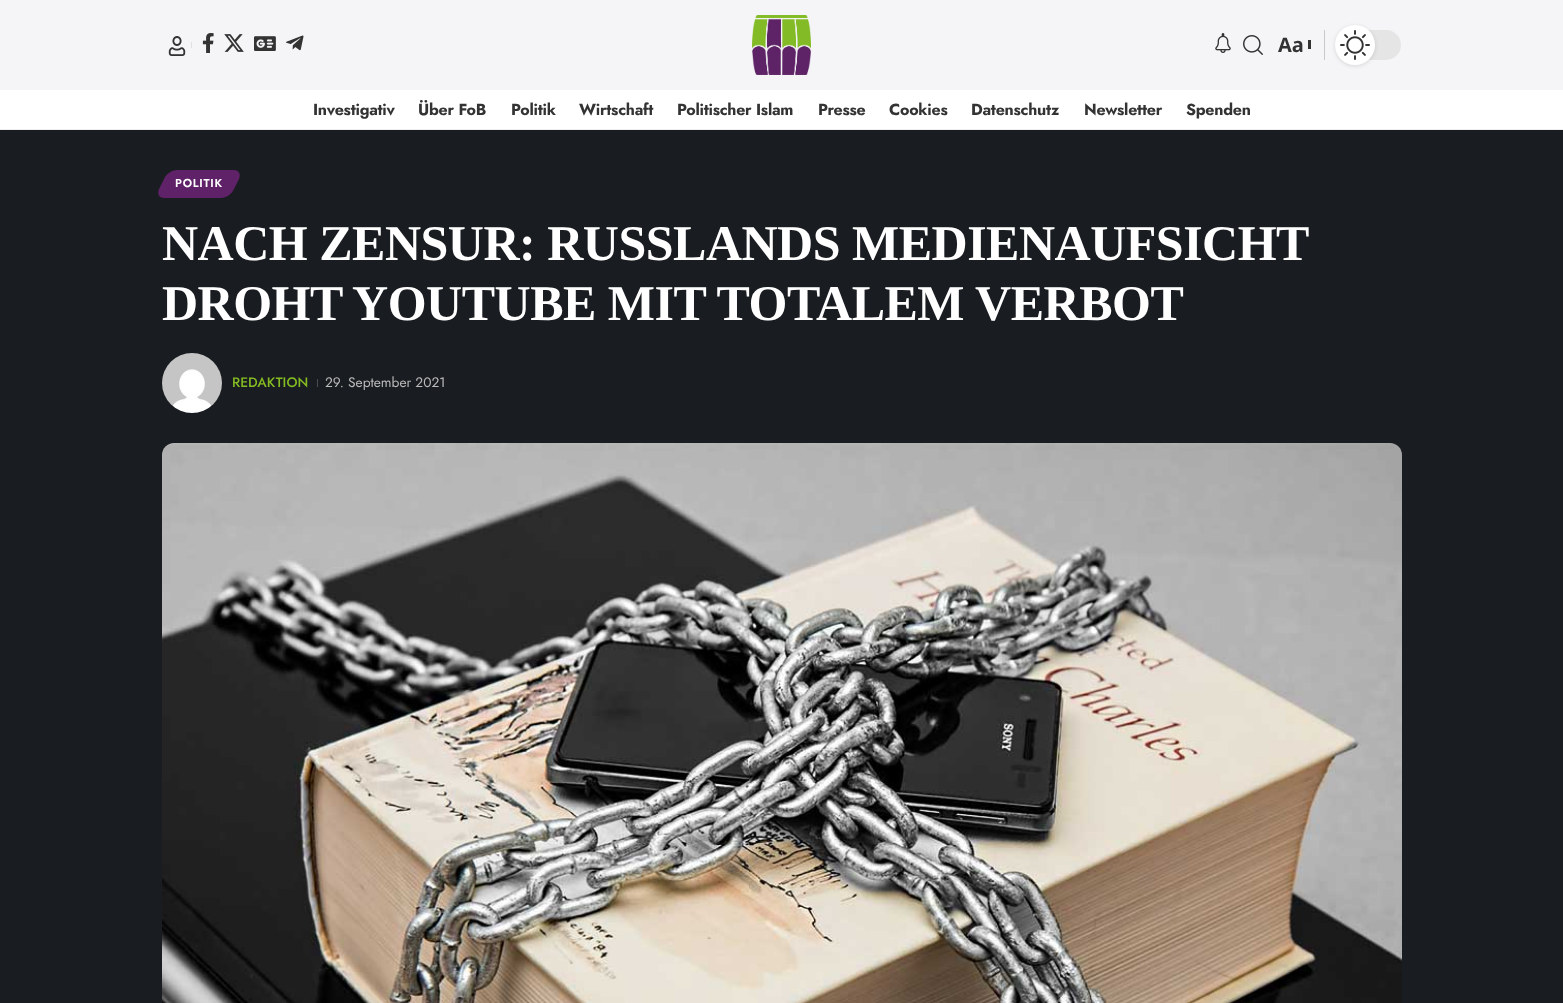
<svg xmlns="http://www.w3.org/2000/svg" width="1563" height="1003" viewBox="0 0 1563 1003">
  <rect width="100%" height="100%" fill="#f5f5f7"/>
  <image x="168" y="36" width="18" height="20" href="img/1.png"/>
  <path d="M191 42h1v6H191z" fill="#e1e1e3"/>
  <image x="202" y="33" width="12" height="20" href="img/2.png"/>
  <image x="224" y="34" width="20" height="18" href="img/3.png"/>
  <image x="254" y="36" width="22" height="15" href="img/4.png"/>
  <image x="286" y="35" width="18" height="16" href="img/5.png"/>
  <image x="752" y="15" width="59" height="60" href="img/6.png"/>
  <image x="1215" y="33" width="16" height="20" href="img/7.png"/>
  <image x="1243" y="35" width="20" height="20" href="img/8.png"/>
  <path d="M1308 40h3v9H1308z" fill="#333"/>
  <path d="M1324 30h1v30H1324z" fill="#c9c9cb"/>
  <rect x="1335" y="30" width="66" height="30" rx="15" fill="#e5e5e6"/>
  <rect x="1335" y="26" width="40" height="40" rx="20" fill="#0000001f" filter="blur(2px)"/>
  <circle cx="1355" cy="45" r="20" fill="#fff"/>
  <image x="1340" y="30" width="30" height="30" href="img/9.png"/>
  <path d="M0 90h1563v39H0z" fill="#fff"/>
  <path d="M0 129h1563v1H0z" fill="#ededed"/>
  <path d="M0 130h1563v873H0z" fill="#191c20"/>
  <path d="M177 170H234C239 170 241 174 239 179L234 189C232 194 226 198 221 198H164C159 198 157 194 159 189L164 179C166 174 172 170 177 170Z" fill="#5f2167"/>
  <image x="162" y="353" width="60" height="60" href="img/10.png"/>
  <path d="M317 379h1v8H317z" fill="#4a4c4f"/>
  <image x="162" y="443" width="1240" height="560" href="img/11.png"/>
  <text x="1278" y="52" font-family="Open Sans" font-size="20" font-weight="bold" fill="#333">Aa</text>
  <g font-family="Jost" font-size="16" font-weight="bold" letter-spacing="-0.25" fill="#333">
    <text x="313" y="115">Investigativ</text>
    <text x="418" y="115">Über FoB</text>
    <text x="511" y="115">Politik</text>
    <text x="579" y="115">Wirtschaft</text>
    <text x="677" y="115">Politischer Islam</text>
    <text x="818" y="115">Presse</text>
    <text x="889" y="115">Cookies</text>
    <text x="971" y="115">Datenschutz</text>
    <text x="1084" y="115">Newsletter</text>
    <text x="1186" y="115">Spenden</text>
  </g>
  <text x="175" y="187" font-family="Jost" font-size="11.5" font-weight="600" letter-spacing="0.75" fill="#fff">POLITIK</text>
  <g font-family="Liberation Serif" font-size="50" font-weight="bold" letter-spacing="-0.5" fill="#fff">
    <text x="162" y="260">NACH ZENSUR: RUSSLANDS MEDIENAUFSICHT</text>
    <text x="162" y="320">DROHT YOUTUBE MIT TOTALEM VERBOT</text>
  </g>
  <text x="232" y="387" font-family="Jost" font-size="13.75" font-weight="500" fill="#84bb22">REDAKTION</text>
  <text x="325" y="387" font-family="Jost" font-size="13.75" fill="#bbb">29. September 2021</text>
</svg>
